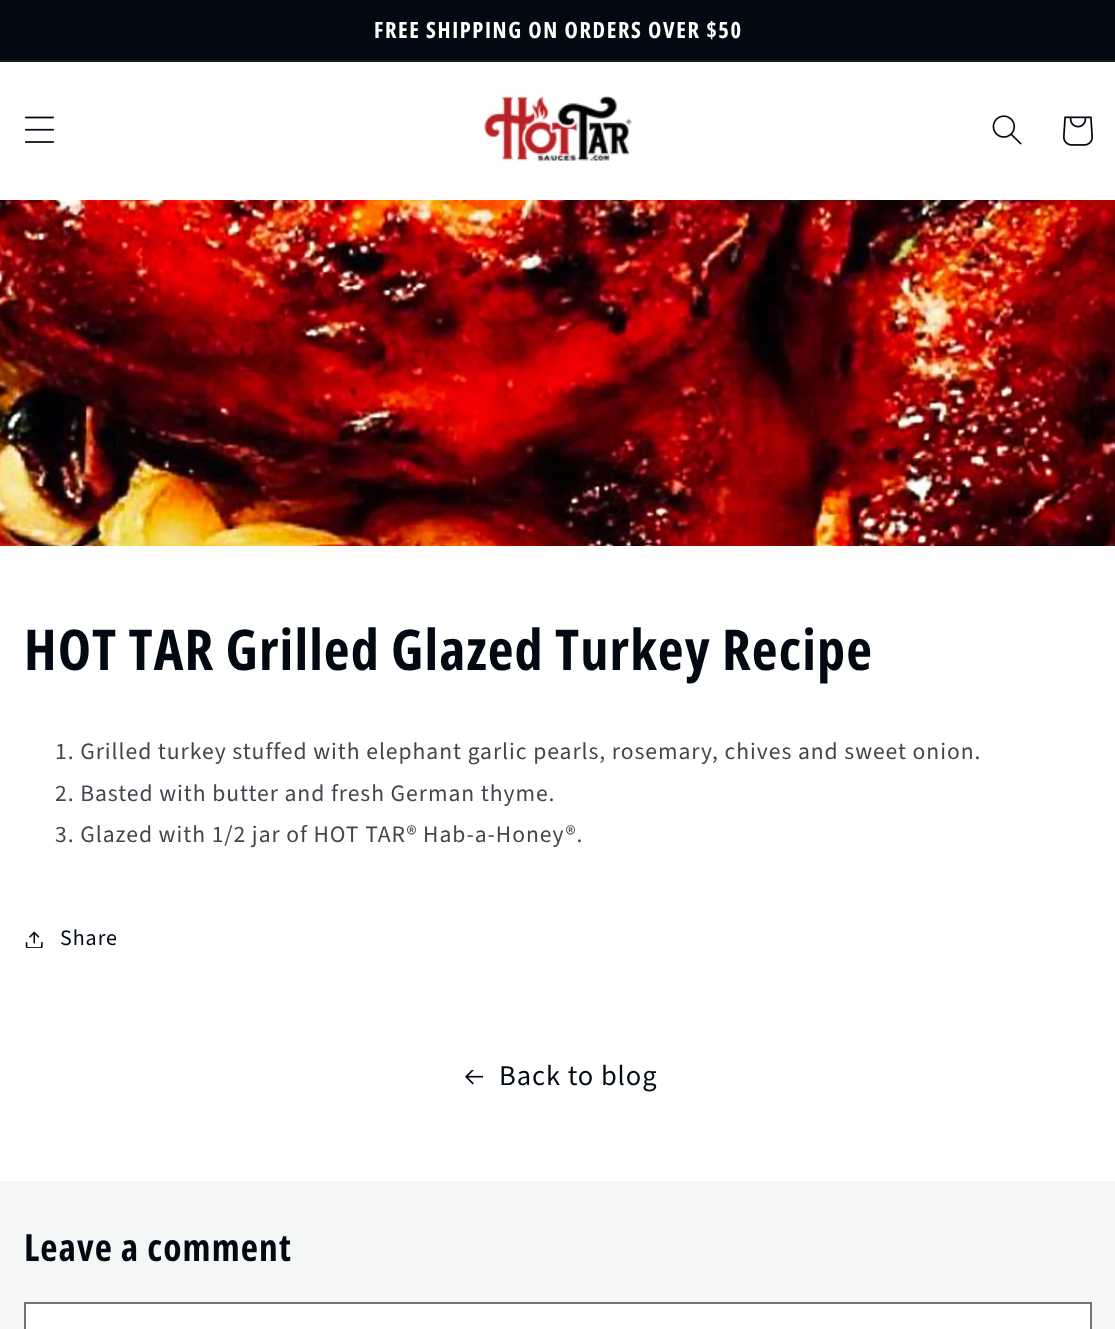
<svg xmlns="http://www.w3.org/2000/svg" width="1115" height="1329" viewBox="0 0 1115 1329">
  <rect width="100%" height="100%" fill="#fff"/>
  <path d="M0 0h1115v60H0z" fill="#020912"/>
  <path d="M0 60h1115v2H0z" fill="#161d25"/>
  <image x="24" y="116" width="31" height="27" href="img/1.png"/>
  <image x="484" y="95" width="148" height="67" href="img/2.png"/>
  <image x="992" y="115" width="30" height="30" href="img/3.png"/>
  <image x="1063" y="116" width="31" height="30" href="img/4.png"/>
  <image x="0" y="200" width="1115" height="346" href="img/5.png"/>
  <image x="25" y="931" width="18" height="17" href="img/6.png"/>
  <image x="465" y="1070" width="18" height="15" href="img/7.png"/>
  <path d="M0 1181h1115v148H0z" fill="#f5f6f6"/>
  <path d="M26 1304h1065v25H26z" fill="#fff"/>
  <path d="M25 1303h1066v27H25z" fill="none" stroke="#0209128c" stroke-width="2"/>
  <text x="374" y="38" font-family="Open Sans Condensed" font-size="22.5" font-weight="bold" letter-spacing="1.6" fill="#fff">FREE SHIPPING ON ORDERS OVER $50</text>
  <text x="24" y="670" font-family="Open Sans Condensed" font-size="56.25" font-weight="bold" letter-spacing="1.1" fill="#020912">HOT TAR Grilled Glazed Turkey Recipe</text>
  <g font-family="Source Sans Pro" font-size="23.6" letter-spacing="0.95" fill="#41474d">
    <text x="55" y="759">1. Grilled turkey stuffed with elephant garlic pearls, rosemary, chives and sweet onion.</text>
    <text x="55" y="801">2. Basted with butter and fresh German thyme.</text>
    <text x="55" y="842">3. Glazed with 1/2 jar of HOT TAR® Hab-a-Honey®.</text>
  </g>
  <text x="60" y="945" font-family="Source Sans Pro" font-size="22" letter-spacing="0.95" fill="#020912">Share</text>
  <text x="499" y="1085" font-family="Source Sans Pro" font-size="28.5" letter-spacing="0.95" fill="#020912">Back to blog</text>
  <text x="24" y="1261" font-family="Open Sans Condensed" font-size="37.5" font-weight="bold" letter-spacing="1.1" fill="#020912">Leave a comment</text>
</svg>
